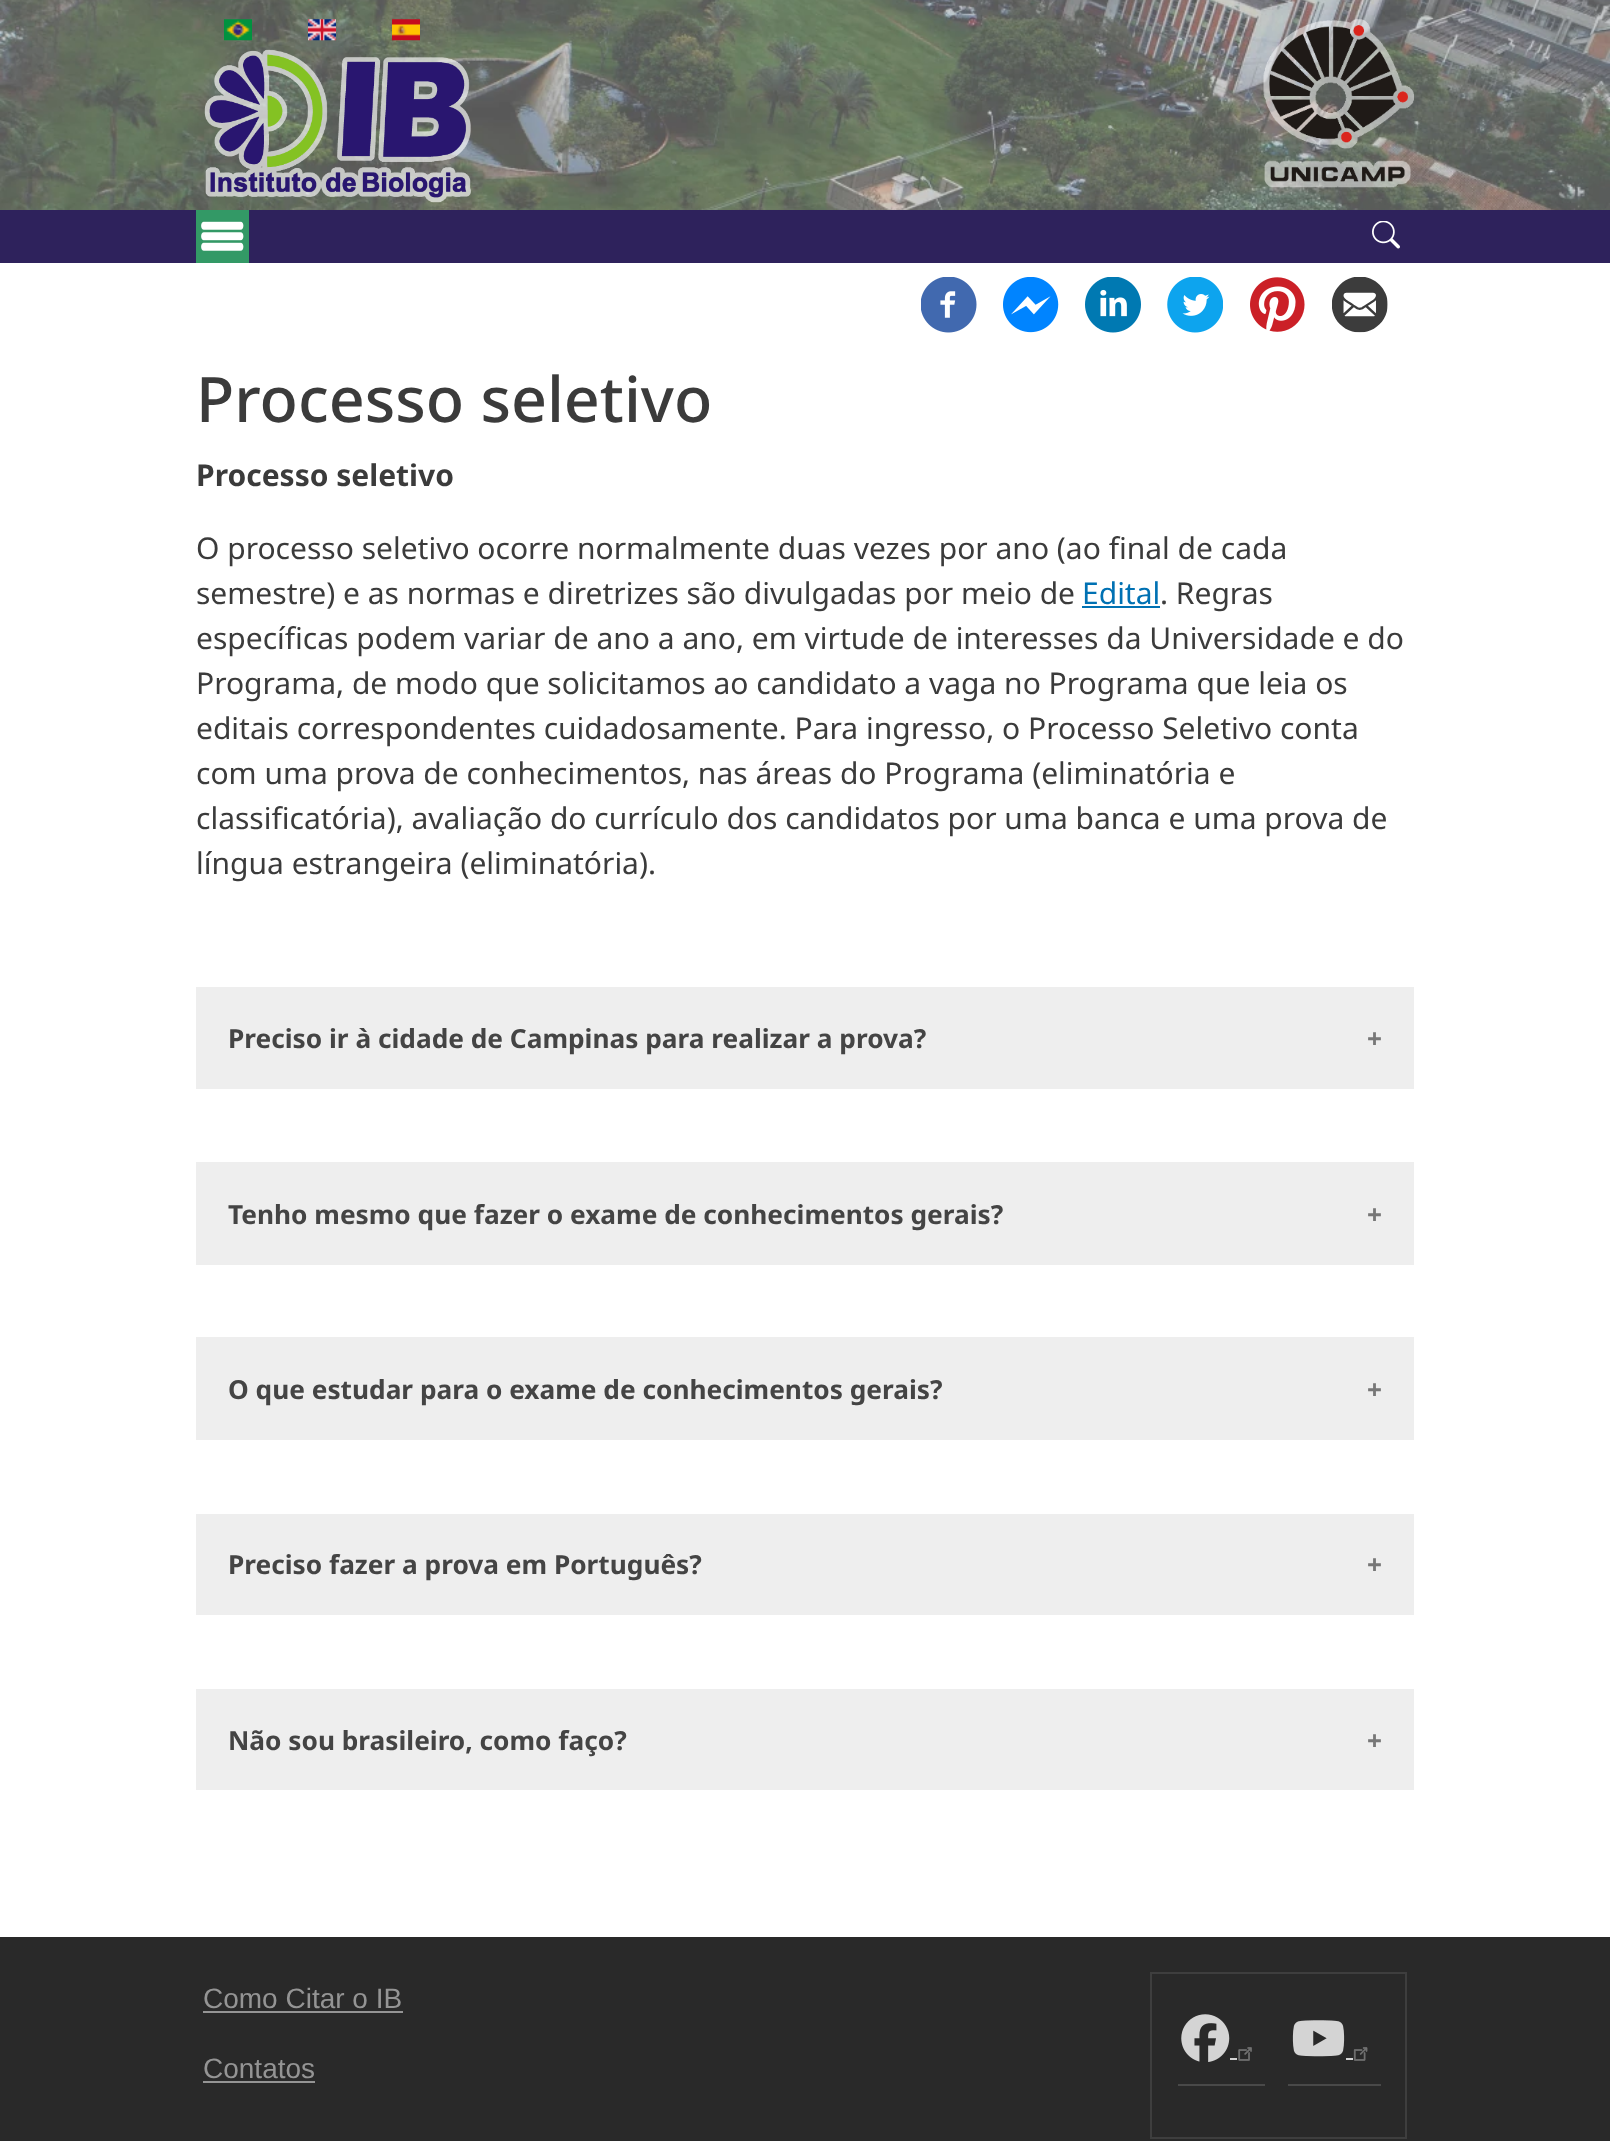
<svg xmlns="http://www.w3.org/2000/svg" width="1610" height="2141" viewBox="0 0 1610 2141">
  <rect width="100%" height="100%" fill="#fff"/>
  <image x="0" y="0" width="1610" height="210" href="img/1.png"/>
  <image x="224" y="19" width="28" height="22" href="img/2.png"/>
  <image x="308" y="19" width="28" height="22" href="img/3.png"/>
  <image x="392" y="19" width="28" height="22" href="img/4.png"/>
  <image x="1263" y="19" width="151" height="169" href="img/5.png"/>
  <image x="204" y="49" width="267" height="154" href="img/6.png"/>
  <path d="M0 210h1610v53H0z" fill="#2e225c"/>
  <image x="196" y="210" width="53" height="53" href="img/7.png"/>
  <image x="1372" y="221" width="28" height="28" href="img/8.png"/>
  <image x="921" y="277" width="56" height="56" href="img/9.png"/>
  <image x="1003" y="277" width="56" height="56" href="img/10.png"/>
  <image x="1085" y="277" width="56" height="56" href="img/11.png"/>
  <image x="1167" y="277" width="56" height="56" href="img/12.png"/>
  <image x="1250" y="277" width="55" height="55" href="img/13.png"/>
  <image x="1332" y="277" width="56" height="56" href="img/14.png"/>
  <path d="M1082 606h78v2H1082z" fill="#0071b3"/>
  <path d="M196 987h1218v102H196z" fill="#eee"/>
  <path d="M196 1162h1218v103H196z" fill="#eee"/>
  <path d="M196 1337h1218v103H196z" fill="#eee"/>
  <path d="M196 1514h1218v101H196z" fill="#eee"/>
  <path d="M196 1689h1218v101H196z" fill="#eee"/>
  <path d="M0 1937h1610v204H0z" fill="#292929"/>
  <path d="M203 2011h200v2H203z" fill="#949494"/>
  <path d="M203 2081h112v2H203z" fill="#949494"/>
  <path d="M1151 1973h255v165H1151z" fill="none" stroke="#3e3e3e" stroke-width="2"/>
  <path d="M1178 2084h87v2H1178z" fill="#494949"/>
  <image x="1181" y="2014" width="49" height="48" href="img/15.png"/>
  <path d="M1230 2058h7v2H1230z" fill="#d4d4d4"/>
  <image x="1238" y="2047" width="14" height="14" href="img/16.png"/>
  <path d="M1288 2084h93v2H1288z" fill="#494949"/>
  <image x="1292" y="2020" width="53" height="37" href="img/17.png"/>
  <path d="M1346 2058h7v2H1346z" fill="#d4d4d4"/>
  <image x="1353" y="2047" width="15" height="14" href="img/18.png"/>
  <text x="196" y="422" font-family="Noto Sans" font-size="62.75" font-weight="500" fill="#3b3b3b">Processo seletivo</text>
  <text x="196" y="486" font-family="Noto Sans" font-size="30" font-weight="bold" fill="#3b3b3b">Processo seletivo</text>
  <g font-family="Noto Sans" font-size="30" fill="#3b3b3b">
    <text x="196" y="559">O processo seletivo ocorre normalmente duas vezes por ano (ao final de cada</text>
    <text x="196" y="604">semestre) e as normas e diretrizes são divulgadas por meio de</text>
  </g>
  <text x="1082" y="604" font-family="Noto Sans" font-size="30" fill="#0071b3">Edital</text>
  <g font-family="Noto Sans" font-size="30" fill="#3b3b3b">
    <text x="1160" y="604">. Regras</text>
    <text x="196" y="649">específicas podem variar de ano a ano, em virtude de interesses da Universidade e do</text>
    <text x="196" y="694">Programa, de modo que solicitamos ao candidato a vaga no Programa que leia os</text>
    <text x="196" y="739">editais correspondentes cuidadosamente. Para ingresso, o Processo Seletivo conta</text>
    <text x="196" y="784">com uma prova de conhecimentos, nas áreas do Programa (eliminatória e</text>
    <text x="196" y="829">classificatória), avaliação do currículo dos candidatos por uma banca e uma prova de</text>
    <text x="196" y="874">língua estrangeira (eliminatória).</text>
  </g>
  <text x="228" y="1048" font-family="Noto Sans" font-size="26.25" font-weight="bold" fill="#444">Preciso ir à cidade de Campinas para realizar a prova?</text>
  <text x="1367" y="1048" font-family="Noto Sans" font-size="26.25" font-weight="bold" fill="#777">+</text>
  <text x="228" y="1224" font-family="Noto Sans" font-size="26.25" font-weight="bold" fill="#444">Tenho mesmo que fazer o exame de conhecimentos gerais?</text>
  <text x="1367" y="1224" font-family="Noto Sans" font-size="26.25" font-weight="bold" fill="#777">+</text>
  <text x="228" y="1399" font-family="Noto Sans" font-size="26.25" font-weight="bold" fill="#444">O que estudar para o exame de conhecimentos gerais?</text>
  <text x="1367" y="1399" font-family="Noto Sans" font-size="26.25" font-weight="bold" fill="#777">+</text>
  <text x="228" y="1574" font-family="Noto Sans" font-size="26.25" font-weight="bold" fill="#444">Preciso fazer a prova em Português?</text>
  <text x="1367" y="1574" font-family="Noto Sans" font-size="26.25" font-weight="bold" fill="#777">+</text>
  <text x="228" y="1750" font-family="Noto Sans" font-size="26.25" font-weight="bold" fill="#444">Não sou brasileiro, como faço?</text>
  <text x="1367" y="1750" font-family="Noto Sans" font-size="26.25" font-weight="bold" fill="#777">+</text>
  <g font-family="Liberation Sans" font-size="28" fill="#949494">
    <text x="203" y="2008">Como Citar o IB</text>
    <text x="203" y="2078">Contatos</text>
  </g>
</svg>
